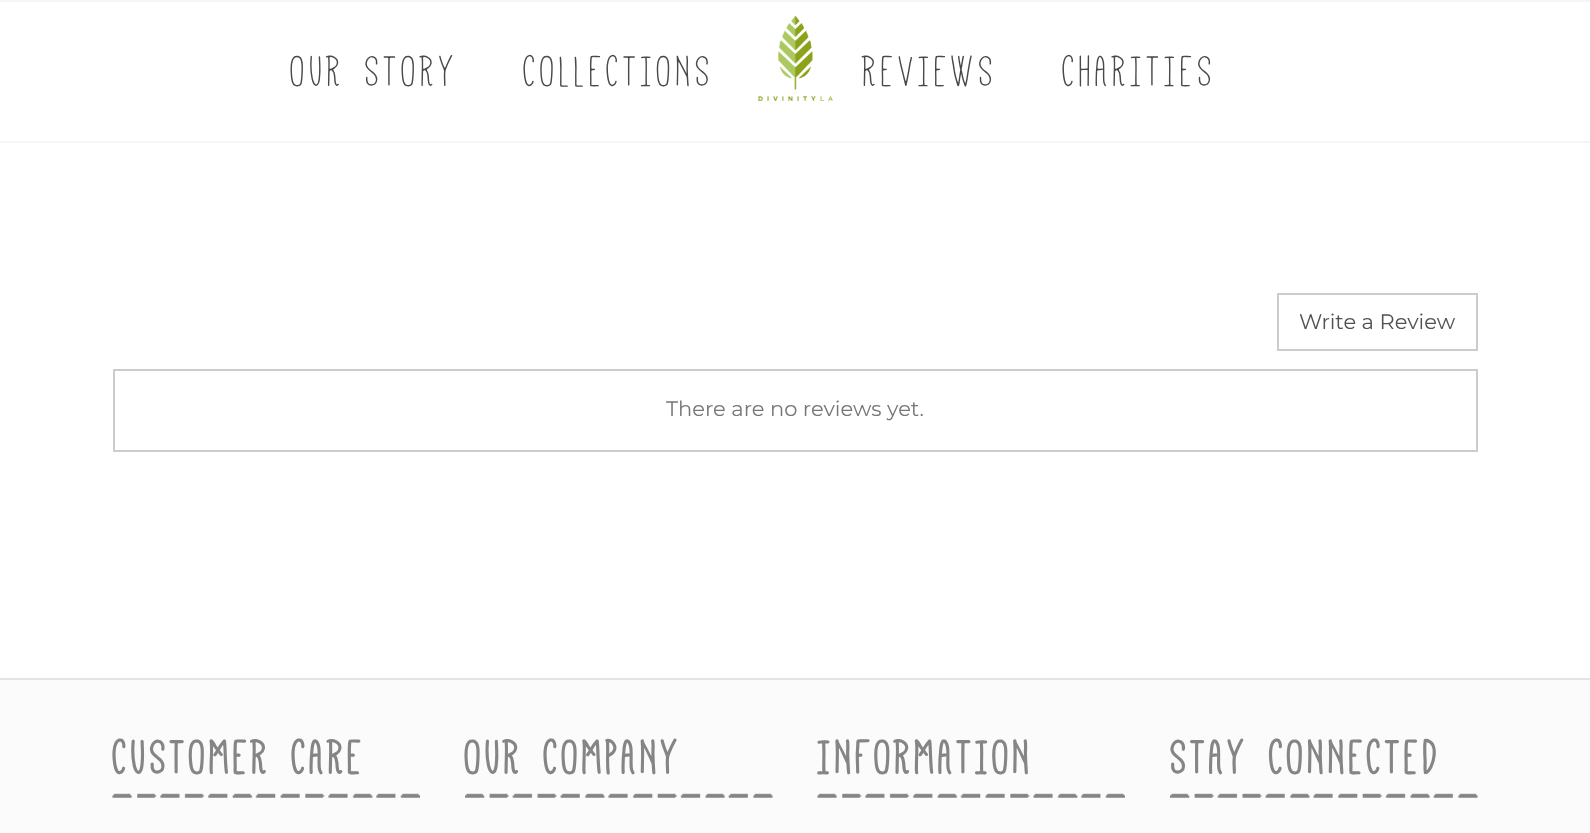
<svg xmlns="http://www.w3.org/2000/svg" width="1590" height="833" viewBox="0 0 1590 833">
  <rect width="100%" height="100%" fill="#fff"/>
  <path d="M0 0h1590v2H0z" fill="#f5f5f5"/>
  <path d="M0 141h1590v2H0z" fill="#f5f5f5"/>
  <image x="758" y="15" width="75" height="86" href="img/1.png"/>
  <path d="M1278 294h199v56H1278z" fill="none" stroke="#ccc" stroke-width="2"/>
  <path d="M114 370h1363v81H114z" fill="none" stroke="#ccc" stroke-width="2"/>
  <path d="M0 680h1590v153H0z" fill="#fbfbfb"/>
  <path d="M0 678h1590v2H0z" fill="#e4e4e4"/>
  <image x="112" y="793" width="308" height="5" href="img/2.png"/>
  <image x="465" y="793" width="308" height="5" href="img/3.png"/>
  <image x="817" y="793" width="308" height="5" href="img/2.png"/>
  <image x="1170" y="793" width="308" height="5" href="img/4.png"/>
  <g font-family="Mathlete" font-size="49.5" font-weight="300" letter-spacing="4.5" fill="#494949">
    <text x="291" y="86">OUR STORY</text>
    <text x="524" y="86">COLLECTIONS</text>
    <text x="863" y="86">REVIEWS</text>
    <text x="1063" y="86">CHARITIES</text>
  </g>
  <text x="1299" y="329" font-family="Montserrat" font-size="21" fill="#525252">Write a Review</text>
  <text x="666" y="416" font-family="Montserrat" font-size="21" fill="#777">There are no reviews yet.</text>
  <g font-family="Mathlete" font-size="54" font-weight="bold" letter-spacing="4.5" fill="#858585">
    <text x="113" y="774">CUSTOMER CARE</text>
    <text x="465" y="774">OUR COMPANY</text>
    <text x="818" y="774">INFORMATION</text>
    <text x="1170" y="774">STAY CONNECTED</text>
  </g>
</svg>
